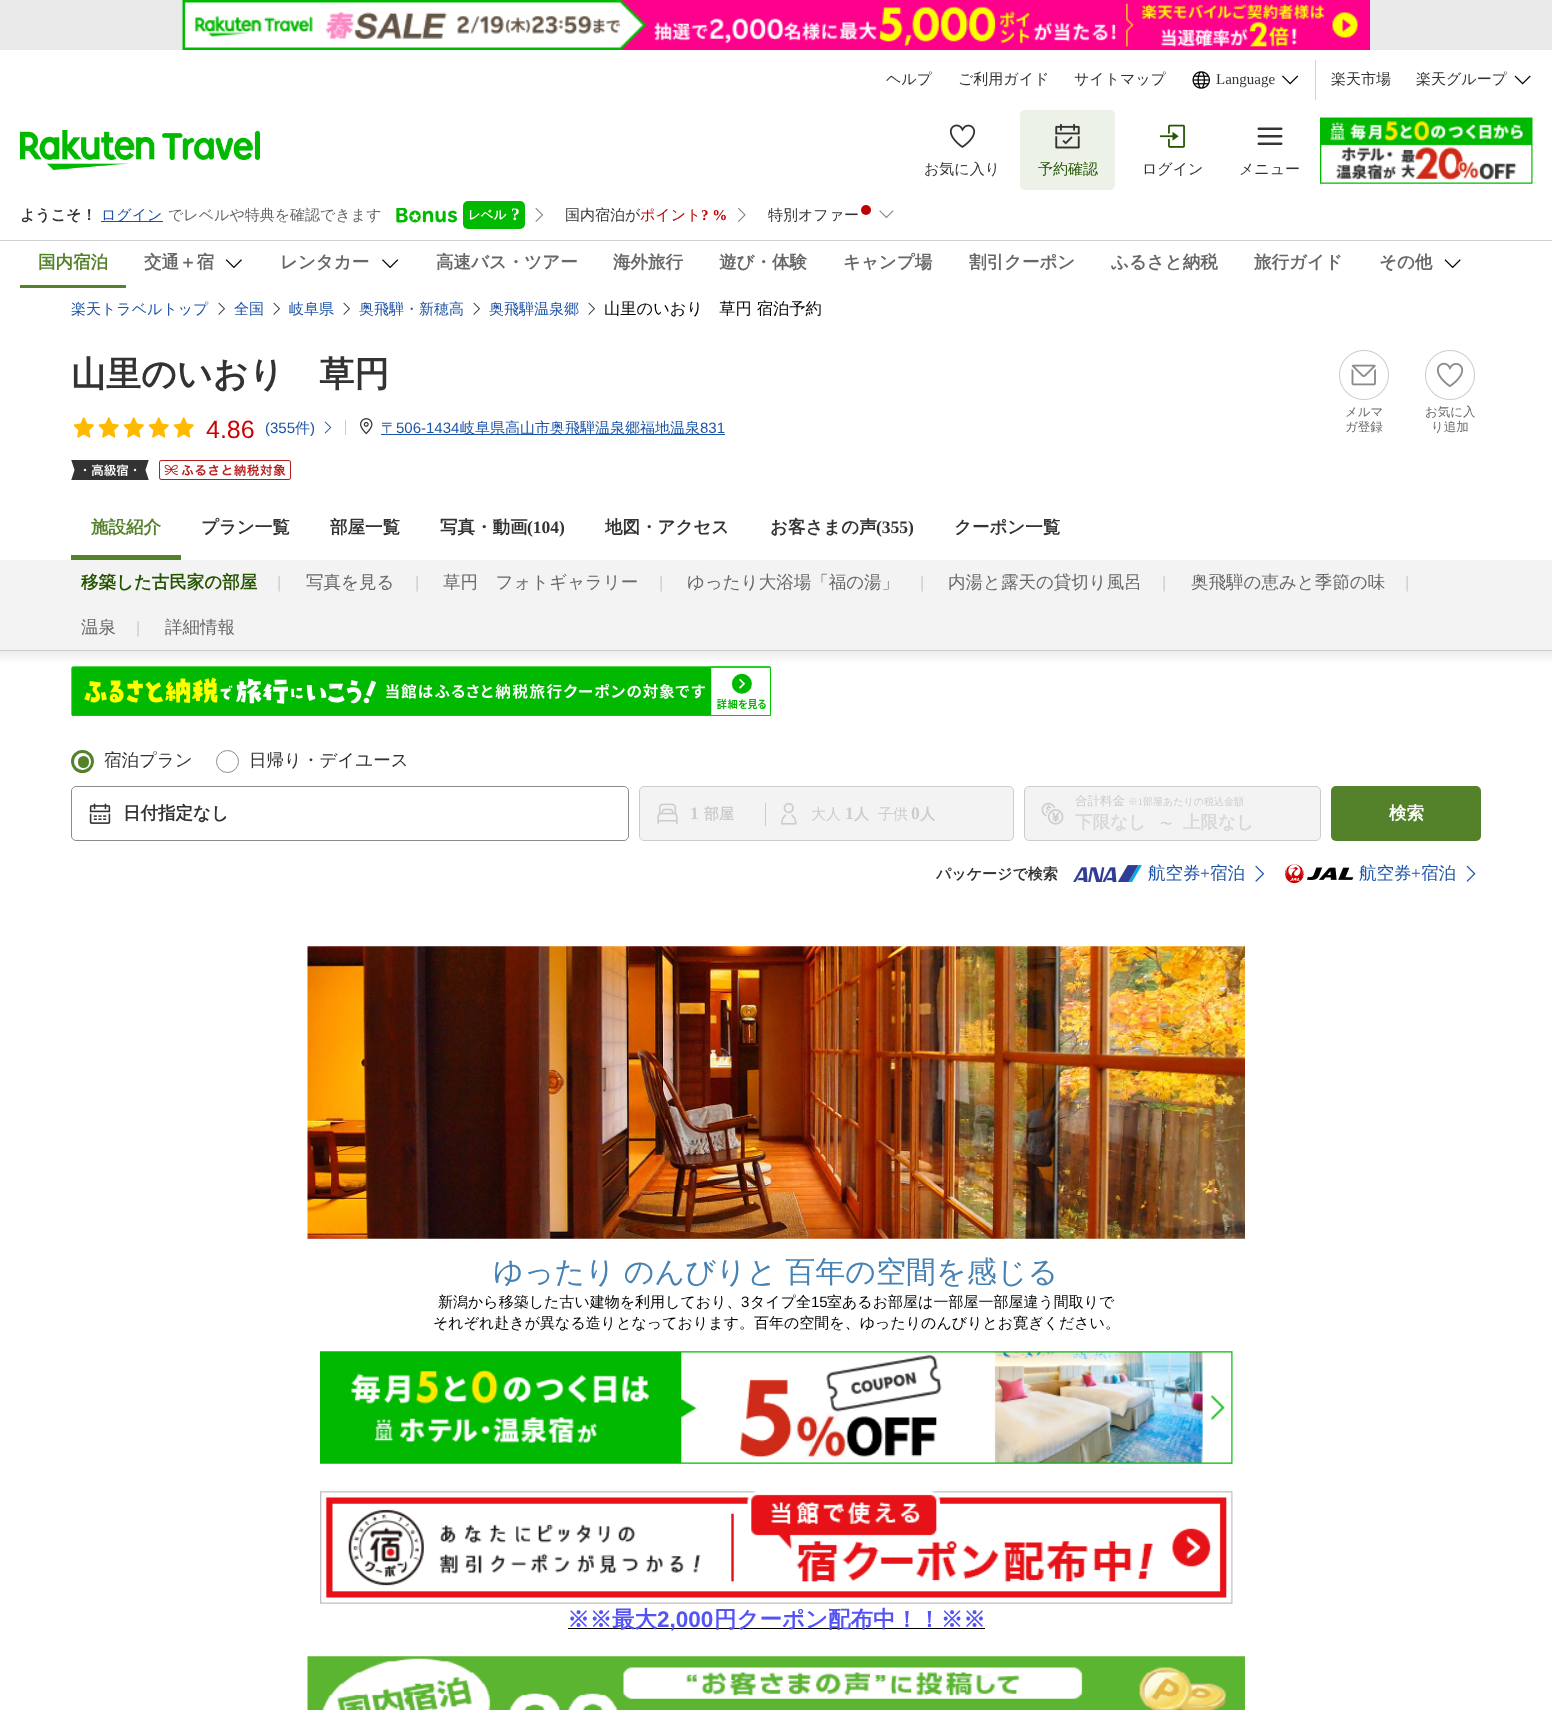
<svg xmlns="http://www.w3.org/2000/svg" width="1552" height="1710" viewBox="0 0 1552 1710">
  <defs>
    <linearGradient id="g1" gradientUnits="userSpaceOnUse" x1="776" y1="664" x2="776" y2="651"><stop offset="0" stop-color="#fff"/><stop offset="1" stop-color="#ededed"/></linearGradient>
  </defs>
  <rect width="100%" height="100%" fill="#fff"/>
  <path d="M0 0h1552v50H0z" fill="#eaeaea"/>
  <image x="182" y="0" width="1188" height="50" href="img/1.png"/>
  <image x="1192" y="71" width="18" height="18" href="img/2.png"/>
  <image x="1282" y="75" width="17" height="10" href="img/3.png"/>
  <path d="M1315 60h1v40H1315z" fill="#d1d1d1"/>
  <image x="1514" y="75" width="17" height="10" href="img/4.png"/>
  <image x="20" y="130" width="240" height="40" href="img/5.png"/>
  <image x="949" y="124" width="27" height="24" href="img/6.png"/>
  <rect x="1020" y="110" width="95" height="80" rx="5" fill="#edf2e9"/>
  <image x="1055" y="124" width="25" height="25" href="img/7.png"/>
  <image x="1160" y="124" width="25" height="24" href="img/8.png"/>
  <image x="1257" y="127" width="26" height="18" href="img/9.png"/>
  <image x="1320" y="117" width="213" height="67" href="img/10.png"/>
  <path d="M101 221h62v1H101z" fill="#1d54a7"/>
  <image x="396" y="208" width="61" height="15" href="img/11.png"/>
  <rect x="463" y="201" width="62" height="28" rx="5" fill="#00b900"/>
  <image x="535" y="207" width="9" height="15" href="img/12.png"/>
  <image x="738" y="207" width="8" height="15" href="img/13.png"/>
  <circle cx="866" cy="210" r="5" fill="#bf0000"/>
  <image x="879" y="210" width="15" height="9" href="img/14.png"/>
  <path d="M0 240h1552v1H0z" fill="#d1d1d1"/>
  <path d="M20 285h106v3H20z" fill="#54822b"/>
  <image x="225" y="259" width="17" height="10" href="img/15.png"/>
  <image x="382" y="259" width="17" height="10" href="img/16.png"/>
  <image x="1444" y="259" width="17" height="10" href="img/17.png"/>
  <image x="218" y="302" width="7" height="13" href="img/18.png"/>
  <image x="273" y="302" width="7" height="13" href="img/18.png"/>
  <image x="343" y="302" width="7" height="13" href="img/18.png"/>
  <image x="473" y="302" width="7" height="13" href="img/18.png"/>
  <image x="588" y="302" width="7" height="13" href="img/18.png"/>
  <image x="73" y="417" width="21" height="21" href="img/19.png"/>
  <image x="98" y="417" width="21" height="21" href="img/19.png"/>
  <image x="123" y="417" width="21" height="21" href="img/19.png"/>
  <image x="148" y="417" width="21" height="21" href="img/19.png"/>
  <image x="173" y="417" width="21" height="21" href="img/19.png"/>
  <path d="M345 420h1v15H345z" fill="#ccc"/>
  <image x="324" y="421" width="8" height="13" href="img/20.png"/>
  <image x="360" y="418" width="13" height="17" href="img/21.png"/>
  <path d="M381 434h344v1H381z" fill="#1d54a7"/>
  <image x="71" y="460" width="78" height="20" href="img/22.png"/>
  <image x="159" y="460" width="132" height="20" href="img/23.png"/>
  <image x="1339" y="350" width="50" height="50" href="img/24.png"/>
  <image x="1425" y="350" width="50" height="50" href="img/25.png"/>
  <path d="M71 555h110v5H71z" fill="#54822b"/>
  <path d="M0 651h1552v11H0z" fill="url(#g1)"/>
  <path d="M0 560h1552v90H0z" fill="#f3f3f3"/>
  <path d="M0 650h1552v1H0z" fill="#ccc"/>
  <image x="71" y="666" width="700" height="50" href="img/26.png"/>
  <circle cx="82.5" cy="761.5" r="10" fill="none" stroke="#54822b" stroke-width="3"/>
  <rect x="78" y="756" width="11" height="12" rx="5.5" fill="#54822b"/>
  <circle cx="227.5" cy="761.5" r="11" fill="none" stroke="#8c8c8c"/>
  <rect x="71.5" y="786.5" width="557" height="54" rx="4.5" fill="none" stroke="#8c8c8c"/>
  <image x="89" y="803" width="22" height="21" href="img/27.png"/>
  <rect x="639.5" y="786.5" width="374" height="54" rx="4.5" fill="#f3f3f3" stroke="#ccc"/>
  <path d="M765 803h1v23H765z" fill="#ccc"/>
  <image x="657" y="803" width="21" height="21" href="img/28.png"/>
  <image x="781" y="803" width="16" height="22" href="img/29.png"/>
  <rect x="1024.5" y="786.5" width="296" height="54" rx="4.5" fill="#f3f3f3" stroke="#ccc"/>
  <image x="1041" y="802" width="23" height="23" href="img/30.png"/>
  <rect x="1331" y="786" width="150" height="55" rx="5" fill="#54822b"/>
  <image x="1073" y="865" width="69" height="17" href="img/31.png"/>
  <image x="1255" y="865" width="10" height="17" href="img/32.png"/>
  <image x="1285" y="864" width="69" height="20" href="img/33.png"/>
  <image x="1466" y="865" width="10" height="17" href="img/34.png"/>
  <image x="307" y="946" width="938" height="293" href="img/35.png"/>
  <image x="320" y="1351" width="913" height="113" href="img/36.png"/>
  <image x="320" y="1491" width="913" height="113" href="img/37.png"/>
  <path d="M568 1628h417v1H568z" fill="#000"/>
  <image x="307" y="1656" width="938" height="54" href="img/38.png"/>
  <g font-family="WenQuanYi Zen Hei" font-size="15" font-weight="500" fill="#333">
    <text x="886" y="84">ヘルプ</text>
    <text x="958" y="84">ご利用ガイド</text>
    <text x="1074" y="84">サイトマップ</text>
  </g>
  <text x="1216" y="84" font-family="Liberation Serif" font-size="15" fill="#333">Language</text>
  <g font-family="WenQuanYi Zen Hei" font-size="15" font-weight="500" fill="#333">
    <text x="1331" y="84">楽天市場</text>
    <text x="1416" y="84">楽天グループ</text>
    <text x="924" y="174">お気に入り</text>
  </g>
  <text x="1038" y="174" font-family="WenQuanYi Zen Hei" font-size="15" font-weight="500" fill="#255500">予約確認</text>
  <g font-family="WenQuanYi Zen Hei" font-size="15" font-weight="500" fill="#333">
    <text x="1142" y="174">ログイン</text>
    <text x="1239" y="174">メニュー</text>
  </g>
  <text x="20" y="220" font-family="WenQuanYi Zen Hei" font-size="15" font-weight="bold" fill="#333">ようこそ！</text>
  <text x="101" y="220" font-family="WenQuanYi Zen Hei" font-size="15" font-weight="500" fill="#1d54a7">ログイン</text>
  <text x="168" y="220" font-family="WenQuanYi Zen Hei" font-size="15" font-weight="500" fill="#686868">でレベルや特典を確認できます</text>
  <text x="468" y="219" font-family="WenQuanYi Zen Hei" font-size="12.5" font-weight="bold" fill="#fff">レベル</text>
  <text x="511" y="220" font-family="Liberation Serif" font-size="17.5" font-weight="bold" fill="#fff">?</text>
  <text x="565" y="220" font-family="WenQuanYi Zen Hei" font-size="15" font-weight="500" fill="#333">国内宿泊が</text>
  <text x="640" y="220" font-family="WenQuanYi Zen Hei" font-size="15" font-weight="500" fill="#bf0000">ポイント</text>
  <text x="701" y="220" font-family="Liberation Serif" font-size="15" font-weight="bold" fill="#bf0000">? %</text>
  <text x="768" y="220" font-family="WenQuanYi Zen Hei" font-size="15" font-weight="500" fill="#333">特別オファー</text>
  <text x="38" y="268" font-family="WenQuanYi Zen Hei" font-size="17.5" font-weight="bold" fill="#54822b">国内宿泊</text>
  <g font-family="WenQuanYi Zen Hei" font-size="17.5" font-weight="bold" fill="#686868">
    <text x="144" y="268">交通＋宿</text>
    <text x="280" y="268">レンタカー</text>
    <text x="436" y="268">高速バス・ツアー</text>
    <text x="613" y="268">海外旅行</text>
    <text x="719" y="268">遊び・体験</text>
    <text x="843" y="268">キャンプ場</text>
    <text x="969" y="268">割引クーポン</text>
    <text x="1111" y="268">ふるさと納税</text>
    <text x="1254" y="268">旅行ガイド</text>
    <text x="1379" y="268">その他</text>
  </g>
  <g font-family="WenQuanYi Zen Hei" font-size="15" font-weight="500" fill="#1d54a7">
    <text x="71" y="314">楽天トラベルトップ</text>
    <text x="234" y="314">全国</text>
    <text x="289" y="314">岐阜県</text>
    <text x="359" y="314">奥飛騨・新穂高</text>
    <text x="489" y="314">奥飛騨温泉郷</text>
  </g>
  <text x="604" y="314" font-family="WenQuanYi Zen Hei" font-size="16.25" font-weight="500" fill="#000">山里のいおり　草円 宿泊予約</text>
  <text x="71" y="386" font-family="WenQuanYi Zen Hei" font-size="35" font-weight="bold" fill="#333">山里のいおり　草円</text>
  <text x="206" y="438" font-family="Liberation Sans" font-size="25" fill="#c00">4.86</text>
  <text x="265" y="433" font-family="Liberation Sans" font-size="15" fill="#1d54a7">(355</text>
  <text x="295" y="433" font-family="WenQuanYi Zen Hei" font-size="15" font-weight="500" fill="#1d54a7">件</text>
  <text x="310" y="433" font-family="Liberation Sans" font-size="15" fill="#1d54a7">)</text>
  <text x="381" y="433" font-family="WenQuanYi Zen Hei" font-size="15" font-weight="500" fill="#1d54a7">〒</text>
  <text x="396" y="433" font-family="Liberation Sans" font-size="15" fill="#1d54a7">506-1434</text>
  <text x="460" y="433" font-family="WenQuanYi Zen Hei" font-size="15" font-weight="500" fill="#1d54a7">岐阜県高山市奥飛騨温泉郷福地温泉</text>
  <text x="700" y="433" font-family="Liberation Sans" font-size="15" fill="#1d54a7">831</text>
  <g font-family="WenQuanYi Zen Hei" font-size="12.5" font-weight="500" fill="#686868">
    <text x="1345" y="416">メルマ</text>
    <text x="1345" y="431">ガ登録</text>
    <text x="1425" y="416">お気に入</text>
    <text x="1431" y="431">り追加</text>
  </g>
  <text x="91" y="533" font-family="WenQuanYi Zen Hei" font-size="17.5" font-weight="bold" fill="#54822b">施設紹介</text>
  <g font-family="WenQuanYi Zen Hei" font-size="17.5" font-weight="bold" fill="#333">
    <text x="201" y="533">プラン一覧</text>
    <text x="330" y="533">部屋一覧</text>
    <text x="440" y="533">写真・動画</text>
  </g>
  <text x="527" y="533" font-family="Liberation Serif" font-size="17.5" font-weight="bold" fill="#333">(104)</text>
  <g font-family="WenQuanYi Zen Hei" font-size="17.5" font-weight="bold" fill="#333">
    <text x="605" y="533">地図・アクセス</text>
    <text x="770" y="533">お客さまの声</text>
  </g>
  <text x="876" y="533" font-family="Liberation Serif" font-size="17.5" font-weight="bold" fill="#333">(355)</text>
  <text x="954" y="533" font-family="WenQuanYi Zen Hei" font-size="17.5" font-weight="bold" fill="#333">クーポン一覧</text>
  <text x="81" y="588" font-family="WenQuanYi Zen Hei" font-size="17.5" font-weight="bold" fill="#255500">移築した古民家の部屋</text>
  <text x="277" y="588" font-family="Liberation Sans" font-size="16.25" fill="#ccc">|</text>
  <text x="306" y="588" font-family="WenQuanYi Zen Hei" font-size="17.5" font-weight="500" fill="#686868">写真を見る</text>
  <text x="415" y="588" font-family="Liberation Sans" font-size="16.25" fill="#ccc">|</text>
  <text x="443" y="588" font-family="WenQuanYi Zen Hei" font-size="17.5" font-weight="500" fill="#686868">草円　フォトギャラリー</text>
  <text x="659" y="588" font-family="Liberation Sans" font-size="16.25" fill="#ccc">|</text>
  <text x="687" y="588" font-family="WenQuanYi Zen Hei" font-size="17.5" font-weight="500" fill="#686868">ゆったり大浴場「福の湯」</text>
  <text x="920" y="588" font-family="Liberation Sans" font-size="16.25" fill="#ccc">|</text>
  <text x="948" y="588" font-family="WenQuanYi Zen Hei" font-size="17.5" font-weight="500" fill="#686868">内湯と露天の貸切り風呂</text>
  <text x="1162" y="588" font-family="Liberation Sans" font-size="16.25" fill="#ccc">|</text>
  <text x="1191" y="588" font-family="WenQuanYi Zen Hei" font-size="17.5" font-weight="500" fill="#686868">奥飛騨の恵みと季節の味</text>
  <text x="1405" y="588" font-family="Liberation Sans" font-size="16.25" fill="#ccc">|</text>
  <text x="81" y="633" font-family="WenQuanYi Zen Hei" font-size="17.5" font-weight="500" fill="#686868">温泉</text>
  <text x="136" y="633" font-family="Liberation Sans" font-size="16.25" fill="#ccc">|</text>
  <text x="165" y="633" font-family="WenQuanYi Zen Hei" font-size="17.5" font-weight="500" fill="#686868">詳細情報</text>
  <g font-family="WenQuanYi Zen Hei" font-size="17.5" font-weight="500" fill="#333">
    <text x="104" y="766">宿泊プラン</text>
    <text x="249" y="766">日帰り・デイユース</text>
  </g>
  <text x="123" y="819" font-family="WenQuanYi Zen Hei" font-size="17.5" font-weight="bold" fill="#333">日付指定なし</text>
  <text x="690" y="819" font-family="Liberation Serif" font-size="17.5" font-weight="bold" fill="#ccc">1</text>
  <text x="704" y="819" font-family="WenQuanYi Zen Hei" font-size="15" font-weight="bold" fill="#ccc">部屋</text>
  <text x="811" y="819" font-family="WenQuanYi Zen Hei" font-size="15" font-weight="500" fill="#ccc">大人</text>
  <text x="845" y="819" font-family="Liberation Serif" font-size="17.5" font-weight="bold" fill="#ccc">1</text>
  <text x="854" y="819" font-family="WenQuanYi Zen Hei" font-size="15" font-weight="bold" fill="#ccc">人</text>
  <text x="878" y="819" font-family="WenQuanYi Zen Hei" font-size="15" font-weight="500" fill="#ccc">子供</text>
  <text x="911" y="819" font-family="Liberation Serif" font-size="17.5" font-weight="bold" fill="#ccc">0</text>
  <text x="920" y="819" font-family="WenQuanYi Zen Hei" font-size="15" font-weight="bold" fill="#ccc">人</text>
  <text x="1075" y="805" font-family="WenQuanYi Zen Hei" font-size="12.5" font-weight="500" fill="#ccc">合計料金</text>
  <text x="1128" y="805" font-family="WenQuanYi Zen Hei" font-size="10" font-weight="500" fill="#ccc">※</text>
  <text x="1138" y="805" font-family="Liberation Serif" font-size="10" fill="#ccc">1</text>
  <text x="1143" y="805" font-family="WenQuanYi Zen Hei" font-size="10" font-weight="500" fill="#ccc">部屋あたりの税込金額</text>
  <text x="1075" y="828" font-family="WenQuanYi Zen Hei" font-size="17.5" font-weight="bold" fill="#d8d8d8">下限なし</text>
  <text x="1160" y="828" font-family="WenQuanYi Zen Hei" font-size="12.5" font-weight="500" fill="#ccc">〜</text>
  <text x="1183" y="828" font-family="WenQuanYi Zen Hei" font-size="17.5" font-weight="bold" fill="#d8d8d8">上限なし</text>
  <text x="1389" y="819" font-family="WenQuanYi Zen Hei" font-size="17.5" font-weight="bold" fill="#fff">検索</text>
  <text x="936" y="879" font-family="WenQuanYi Zen Hei" font-size="15" font-weight="bold" fill="#333">パッケージで検索</text>
  <text x="1148" y="879" font-family="WenQuanYi Zen Hei" font-size="17.5" font-weight="500" fill="#1d54a7">航空券</text>
  <text x="1200" y="879" font-family="Liberation Serif" font-size="17.5" fill="#1d54a7">+</text>
  <g font-family="WenQuanYi Zen Hei" font-size="17.5" font-weight="500" fill="#1d54a7">
    <text x="1210" y="879">宿泊</text>
    <text x="1359" y="879">航空券</text>
  </g>
  <text x="1411" y="879" font-family="Liberation Serif" font-size="17.5" fill="#1d54a7">+</text>
  <text x="1421" y="879" font-family="WenQuanYi Zen Hei" font-size="17.5" font-weight="500" fill="#1d54a7">宿泊</text>
  <text x="493" y="1282" word-spacing="-1" font-family="WenQuanYi Zen Hei" font-size="30" font-weight="500" fill="#4682b4">ゆったり のんびりと 百年の空間を感じる</text>
  <text x="438" y="1307" font-family="WenQuanYi Zen Hei" font-size="15" font-weight="500" fill="#000">新潟から移築した古い建物を利用しており、</text>
  <text x="741" y="1307" font-family="Liberation Sans" font-size="15" fill="#000">3</text>
  <text x="750" y="1307" font-family="WenQuanYi Zen Hei" font-size="15" font-weight="500" fill="#000">タイプ全</text>
  <text x="811" y="1307" font-family="Liberation Sans" font-size="15" fill="#000">15</text>
  <g font-family="WenQuanYi Zen Hei" font-size="15" font-weight="500" fill="#000">
    <text x="827" y="1307">室あるお部屋は一部屋一部屋違う間取りで</text>
    <text x="433" y="1328">それぞれ赴きが異なる造りとなっております。百年の空間を、ゆったりのんびりとお寛ぎください。</text>
  </g>
  <text x="567" y="1627" font-family="WenQuanYi Zen Hei" font-size="22.5" font-weight="bold" fill="#5454f6">※※最大</text>
  <text x="657" y="1627" font-family="Liberation Sans" font-size="22.5" font-weight="bold" fill="#5454f6">2,000</text>
  <text x="714" y="1627" font-family="WenQuanYi Zen Hei" font-size="22.5" font-weight="bold" fill="#5454f6">円クーポン配布中！！※※</text>
</svg>
